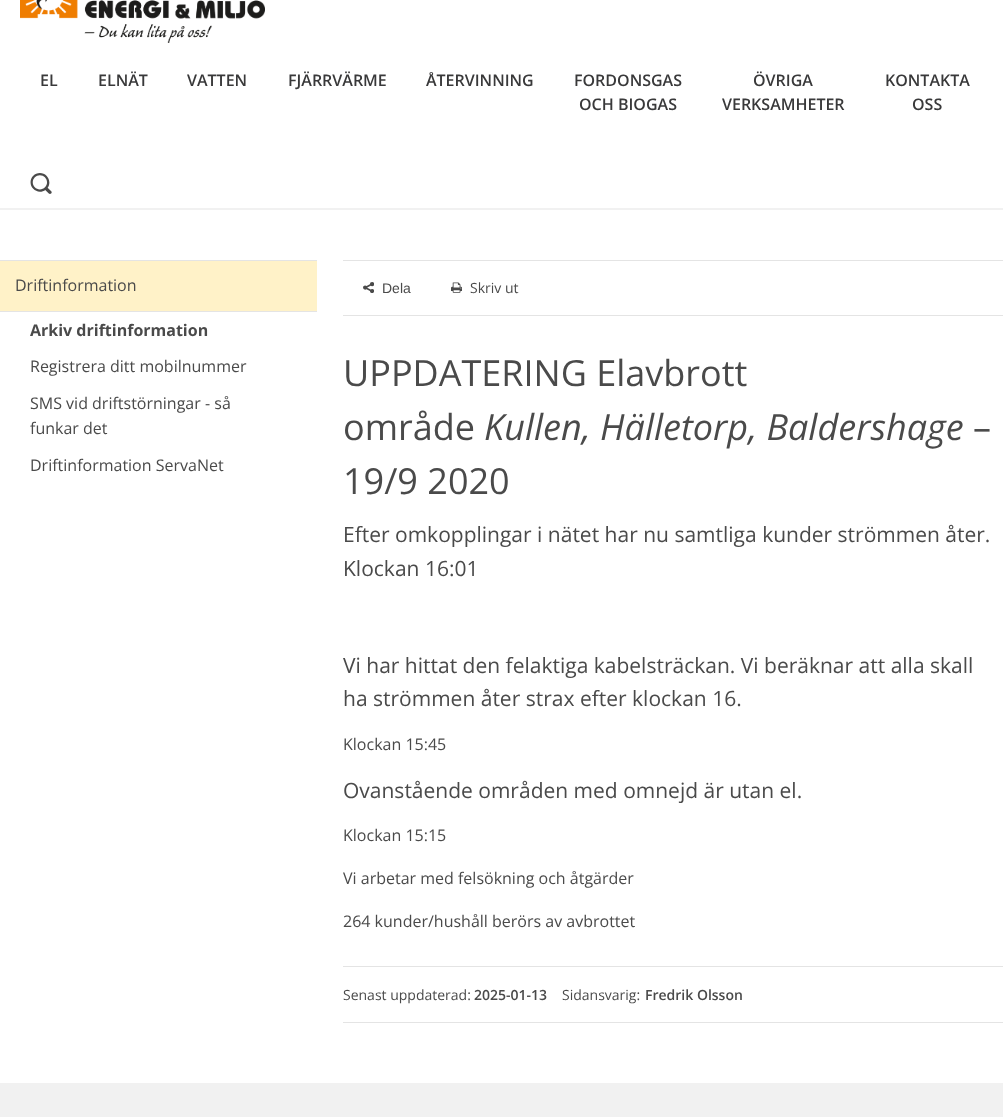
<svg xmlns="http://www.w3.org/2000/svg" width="1003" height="1117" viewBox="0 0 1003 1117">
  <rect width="100%" height="100%" fill="#fff"/>
  <path d="M0 208h1003v2H0z" fill="#f1f1f1"/>
  <image x="20" y="0" width="245" height="43" href="img/1.png"/>
  <image x="30" y="173" width="22" height="21" href="img/2.png"/>
  <path d="M0 261h317v50H0z" fill="#fff2c8"/>
  <path d="M0 260h317v1H0z" fill="#e4e4e4"/>
  <path d="M0 311h317v1H0z" fill="#e4e4e4"/>
  <path d="M343 260h660v1H343z" fill="#e4e4e4"/>
  <path d="M343 315h660v1H343z" fill="#e4e4e4"/>
  <image x="363" y="282" width="11" height="11" href="img/3.png"/>
  <image x="451" y="282" width="11" height="11" href="img/4.png"/>
  <path d="M343 966h660v1H343z" fill="#e4e4e4"/>
  <path d="M343 1022h660v1H343z" fill="#e4e4e4"/>
  <path d="M0 1083h1003v34H0z" fill="#f1f1f1"/>
  <g font-family="Open Sans" font-size="16" font-weight="600" fill="#39393a">
    <text x="40" y="86">EL</text>
    <text x="98" y="86">ELNÄT</text>
    <text x="187" y="86">VATTEN</text>
    <text x="288" y="86">FJÄRRVÄRME</text>
    <text x="426" y="86">ÅTERVINNING</text>
    <text x="574" y="86">FORDONSGAS</text>
    <text x="579" y="110">OCH BIOGAS</text>
    <text x="753" y="86">ÖVRIGA</text>
    <text x="722" y="110">VERKSAMHETER</text>
    <text x="885" y="86">KONTAKTA</text>
    <text x="912" y="110">OSS</text>
  </g>
  <text x="15" y="291" font-family="Open Sans" font-size="16" fill="#4a4a4a">Driftinformation</text>
  <text x="30" y="336" font-family="Open Sans" font-size="16" font-weight="bold" fill="#4a4a4a">Arkiv driftinformation</text>
  <g font-family="Open Sans" font-size="16" fill="#4a4a4a">
    <text x="30" y="372">Registrera ditt mobilnummer</text>
    <text x="30" y="409">SMS vid driftstörningar - så</text>
    <text x="30" y="434">funkar det</text>
    <text x="30" y="471">Driftinformation ServaNet</text>
  </g>
  <text x="382" y="293" font-family="Liberation Sans" font-size="14" fill="#4a4a4a">Dela</text>
  <text x="470" y="293" font-family="Open Sans" font-size="14" fill="#4a4a4a">Skriv ut</text>
  <g font-family="Open Sans" font-size="36" fill="#4a4a4a">
    <text x="343" y="386">UPPDATERING Elavbrott</text>
    <text x="343" y="440">område</text>
  </g>
  <text x="484" y="440" font-family="Open Sans" font-size="36" font-style="italic" fill="#4a4a4a">Kullen, Hälletorp, Baldershage</text>
  <g font-family="Open Sans" font-size="36" fill="#4a4a4a">
    <text x="973" y="440">–</text>
    <text x="343" y="494">19/9 2020</text>
  </g>
  <g font-family="Open Sans" font-size="21" fill="#4a4a4a">
    <text x="343" y="542">Efter omkopplingar i nätet har nu samtliga kunder strömmen åter.</text>
    <text x="343" y="576">Klockan 16:01</text>
    <text x="343" y="673">Vi har hittat den felaktiga kabelsträckan. Vi beräknar att alla skall</text>
    <text x="343" y="706">ha strömmen åter strax efter klockan 16.</text>
  </g>
  <text x="343" y="750" font-family="Open Sans" font-size="16" fill="#4a4a4a">Klockan 15:45</text>
  <text x="343" y="798" font-family="Open Sans" font-size="21" fill="#4a4a4a">Ovanstående områden med omnejd är utan el.</text>
  <g font-family="Open Sans" font-size="16" fill="#4a4a4a">
    <text x="343" y="841">Klockan 15:15</text>
    <text x="343" y="884">Vi arbetar med felsökning och åtgärder</text>
    <text x="343" y="927">264 kunder/hushåll berörs av avbrottet</text>
  </g>
  <text x="343" y="1000" font-family="Open Sans" font-size="14" fill="#4a4a4a">Senast uppdaterad:</text>
  <text x="474" y="1000" font-family="Open Sans" font-size="14" font-weight="600" fill="#4a4a4a">2025-01-13</text>
  <text x="562" y="1000" font-family="Open Sans" font-size="14" fill="#4a4a4a">Sidansvarig:</text>
  <text x="645" y="1000" font-family="Open Sans" font-size="14" font-weight="600" fill="#4a4a4a">Fredrik Olsson</text>
</svg>
